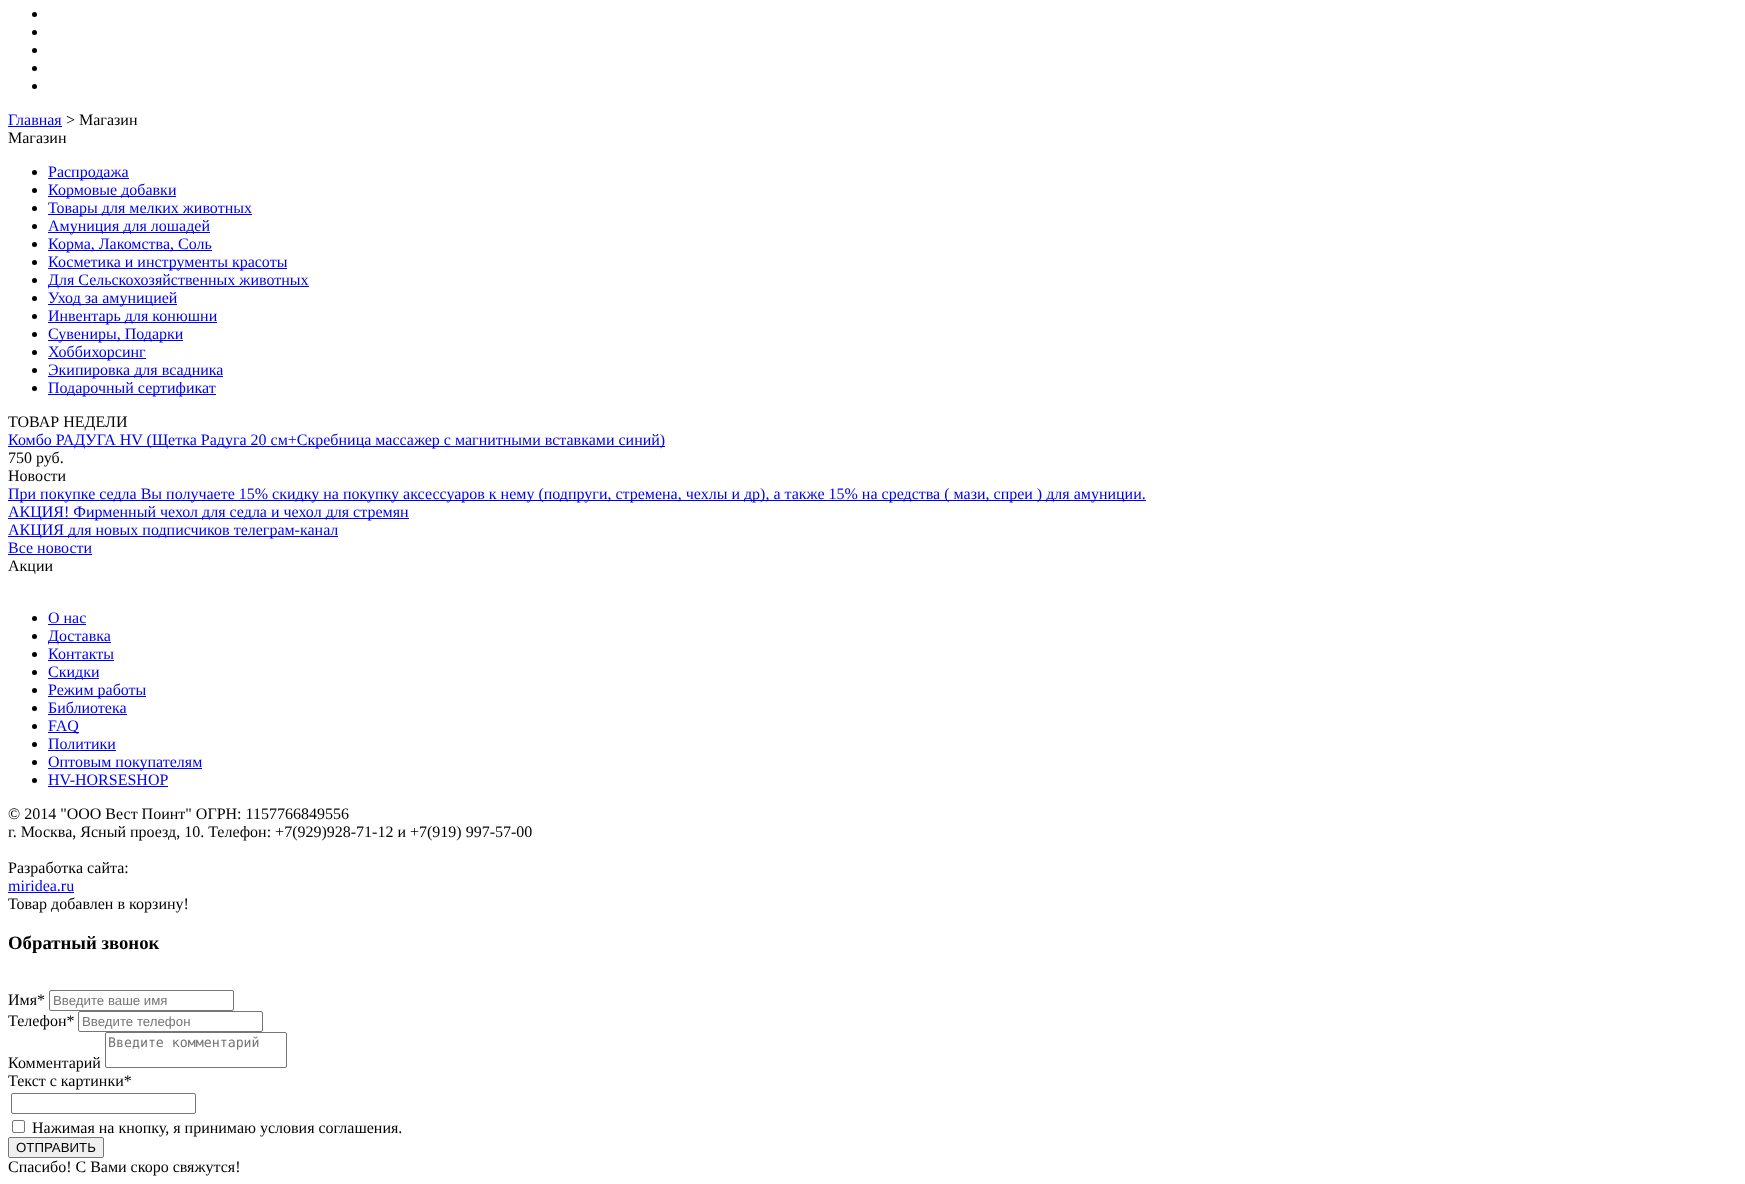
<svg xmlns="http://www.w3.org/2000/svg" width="1745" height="1184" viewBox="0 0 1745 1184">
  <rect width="100%" height="100%" fill="#fff"/>
  <circle cx="34.5" cy="14.5" r="2.5" fill="#000"/>
  <circle cx="34.5" cy="32.5" r="2.5" fill="#000"/>
  <circle cx="34.5" cy="50.5" r="2.5" fill="#000"/>
  <circle cx="34.5" cy="68.5" r="2.5" fill="#000"/>
  <circle cx="34.5" cy="86.5" r="2.5" fill="#000"/>
  <path d="M8 126h54v1H8z" fill="#00e"/>
  <circle cx="34.5" cy="172.5" r="2.5" fill="#000"/>
  <path d="M48 178h81v1H48z" fill="#00e"/>
  <circle cx="34.5" cy="190.5" r="2.5" fill="#000"/>
  <path d="M48 196h128v1H48z" fill="#00e"/>
  <circle cx="34.5" cy="208.5" r="2.5" fill="#000"/>
  <path d="M48 214h204v1H48z" fill="#00e"/>
  <circle cx="34.5" cy="226.5" r="2.5" fill="#000"/>
  <path d="M48 232h162v1H48z" fill="#00e"/>
  <circle cx="34.5" cy="244.5" r="2.5" fill="#000"/>
  <path d="M48 250h164v1H48z" fill="#00e"/>
  <circle cx="34.5" cy="262.5" r="2.5" fill="#000"/>
  <path d="M48 268h239v1H48z" fill="#00e"/>
  <circle cx="34.5" cy="280.5" r="2.5" fill="#000"/>
  <path d="M48 286h261v1H48z" fill="#00e"/>
  <circle cx="34.5" cy="298.5" r="2.5" fill="#000"/>
  <path d="M48 304h129v1H48z" fill="#00e"/>
  <circle cx="34.5" cy="316.5" r="2.5" fill="#000"/>
  <path d="M48 322h169v1H48z" fill="#00e"/>
  <circle cx="34.5" cy="334.5" r="2.5" fill="#000"/>
  <path d="M48 340h135v1H48z" fill="#00e"/>
  <circle cx="34.5" cy="352.5" r="2.5" fill="#000"/>
  <path d="M48 358h98v1H48z" fill="#00e"/>
  <circle cx="34.5" cy="370.5" r="2.5" fill="#000"/>
  <path d="M48 376h175v1H48z" fill="#00e"/>
  <circle cx="34.5" cy="388.5" r="2.5" fill="#000"/>
  <path d="M48 394h168v1H48z" fill="#00e"/>
  <path d="M8 446h657v1H8z" fill="#00e"/>
  <path d="M8 500h1138v1H8z" fill="#00e"/>
  <path d="M8 518h401v1H8z" fill="#00e"/>
  <path d="M8 536h330v1H8z" fill="#00e"/>
  <path d="M8 554h84v1H8z" fill="#00e"/>
  <circle cx="34.5" cy="618.5" r="2.5" fill="#000"/>
  <path d="M48 624h38v1H48z" fill="#00e"/>
  <circle cx="34.5" cy="636.5" r="2.5" fill="#000"/>
  <path d="M48 642h63v1H48z" fill="#00e"/>
  <circle cx="34.5" cy="654.5" r="2.5" fill="#000"/>
  <path d="M48 660h66v1H48z" fill="#00e"/>
  <circle cx="34.5" cy="672.5" r="2.5" fill="#000"/>
  <path d="M48 678h51v1H48z" fill="#00e"/>
  <circle cx="34.5" cy="690.5" r="2.5" fill="#000"/>
  <path d="M48 696h98v1H48z" fill="#00e"/>
  <circle cx="34.5" cy="708.5" r="2.5" fill="#000"/>
  <path d="M48 714h79v1H48z" fill="#00e"/>
  <circle cx="34.5" cy="726.5" r="2.5" fill="#000"/>
  <path d="M48 732h31v1H48z" fill="#00e"/>
  <circle cx="34.5" cy="744.5" r="2.5" fill="#000"/>
  <path d="M48 750h68v1H48z" fill="#00e"/>
  <circle cx="34.5" cy="762.5" r="2.5" fill="#000"/>
  <path d="M48 768h154v1H48z" fill="#00e"/>
  <circle cx="34.5" cy="780.5" r="2.5" fill="#000"/>
  <path d="M48 786h120v1H48z" fill="#00e"/>
  <path d="M8 892h66v1H8z" fill="#00e"/>
  <rect x="49.5" y="990.5" width="184" height="20" rx="1.5" fill="none" stroke="#767676"/>
  <rect x="78.5" y="1011.5" width="184" height="20" rx="1.5" fill="none" stroke="#767676"/>
  <rect x="105.5" y="1032.5" width="181" height="35" rx="1.5" fill="none" stroke="#767676"/>
  <rect x="11.5" y="1093.5" width="184" height="20" rx="1.5" fill="none" stroke="#767676"/>
  <rect x="12.5" y="1120.5" width="12" height="12" rx="1.5" fill="none" stroke="#767676"/>
  <rect x="8.5" y="1137.5" width="95" height="20" rx="1.5" fill="#efefef" stroke="#767676"/>
  <text x="8" y="125" font-family="Liberation Serif" font-size="16" fill="#00e">Главная</text>
  <g font-family="Liberation Serif" font-size="16" fill="#000">
    <text x="66" y="125">&gt; Магазин</text>
    <text x="8" y="143">Магазин</text>
  </g>
  <g font-family="Liberation Serif" font-size="16" fill="#00e">
    <text x="48" y="177">Распродажа</text>
    <text x="48" y="195">Кормовые добавки</text>
    <text x="48" y="213">Товары для мелких животных</text>
    <text x="48" y="231">Амуниция для лошадей</text>
    <text x="48" y="249">Корма, Лакомства, Соль</text>
    <text x="48" y="267">Косметика и инструменты красоты</text>
    <text x="48" y="285">Для Сельскохозяйственных животных</text>
    <text x="48" y="303">Уход за амуницией</text>
    <text x="48" y="321">Инвентарь для конюшни</text>
    <text x="48" y="339">Сувениры, Подарки</text>
    <text x="48" y="357">Хоббихорсинг</text>
    <text x="48" y="375">Экипировка для всадника</text>
    <text x="48" y="393">Подарочный сертификат</text>
  </g>
  <text x="8" y="427" font-family="Liberation Serif" font-size="16" fill="#000">ТОВАР НЕДЕЛИ</text>
  <text x="8" y="445" font-family="Liberation Serif" font-size="16" fill="#00e">Комбо РАДУГА HV (Щетка Радуга 20 см+Скребница массажер с магнитными вставками синий)</text>
  <g font-family="Liberation Serif" font-size="16" fill="#000">
    <text x="8" y="463">750 руб.</text>
    <text x="8" y="481">Новости</text>
  </g>
  <g font-family="Liberation Serif" font-size="16" fill="#00e">
    <text x="8" y="499">При покупке седла Вы получаете 15% скидку на покупку аксессуаров к нему (подпруги, стремена, чехлы и др), а также 15% на средства ( мази, спреи ) для амуниции.</text>
    <text x="8" y="517">АКЦИЯ! Фирменный чехол для седла и чехол для стремян</text>
    <text x="8" y="535">АКЦИЯ для новых подписчиков телеграм-канал</text>
    <text x="8" y="553">Все новости</text>
  </g>
  <text x="8" y="571" font-family="Liberation Serif" font-size="16" fill="#000">Акции</text>
  <g font-family="Liberation Serif" font-size="16" fill="#00e">
    <text x="48" y="623">О нас</text>
    <text x="48" y="641">Доставка</text>
    <text x="48" y="659">Контакты</text>
    <text x="48" y="677">Скидки</text>
    <text x="48" y="695">Режим работы</text>
    <text x="48" y="713">Библиотека</text>
    <text x="48" y="731">FAQ</text>
    <text x="48" y="749">Политики</text>
    <text x="48" y="767">Оптовым покупателям</text>
    <text x="48" y="785">HV-HORSESHOP</text>
  </g>
  <g font-family="Liberation Serif" font-size="16" fill="#000">
    <text x="8" y="819">© 2014 "ООО Вест Поинт" ОГРН: 1157766849556</text>
    <text x="8" y="837">г. Москва, Ясный проезд, 10. Телефон: +7(929)928-71-12 и +7(919) 997-57-00</text>
    <text x="8" y="873">Разработка сайта:</text>
  </g>
  <text x="8" y="891" font-family="Liberation Serif" font-size="16" fill="#00e">miridea.ru</text>
  <text x="8" y="909" font-family="Liberation Serif" font-size="16" fill="#000">Товар добавлен в корзину!</text>
  <text x="8" y="949" font-family="Liberation Serif" font-size="18.75" font-weight="bold" fill="#000">Обратный звонок</text>
  <text x="8" y="1005" font-family="Liberation Serif" font-size="16" fill="#000">Имя*</text>
  <text x="53" y="1005" font-family="Liberation Sans" font-size="13.25" fill="#757575">Введите ваше имя</text>
  <text x="8" y="1026" font-family="Liberation Serif" font-size="16" fill="#000">Телефон*</text>
  <text x="82" y="1026" font-family="Liberation Sans" font-size="13.25" fill="#757575">Введите телефон</text>
  <text x="108" y="1047" font-family="DejaVu Sans Mono" font-size="13.25" fill="#757575">Введите комментарий</text>
  <g font-family="Liberation Serif" font-size="16" fill="#000">
    <text x="8" y="1068">Комментарий</text>
    <text x="8" y="1086">Текст с картинки*</text>
    <text x="32" y="1133">Нажимая на кнопку, я принимаю условия соглашения.</text>
  </g>
  <text x="16" y="1152" font-family="Liberation Sans" font-size="13.25" fill="#000">ОТПРАВИТЬ</text>
  <text x="8" y="1172" font-family="Liberation Serif" font-size="16" fill="#000">Спасибо! С Вами скоро свяжутся!</text>
</svg>
